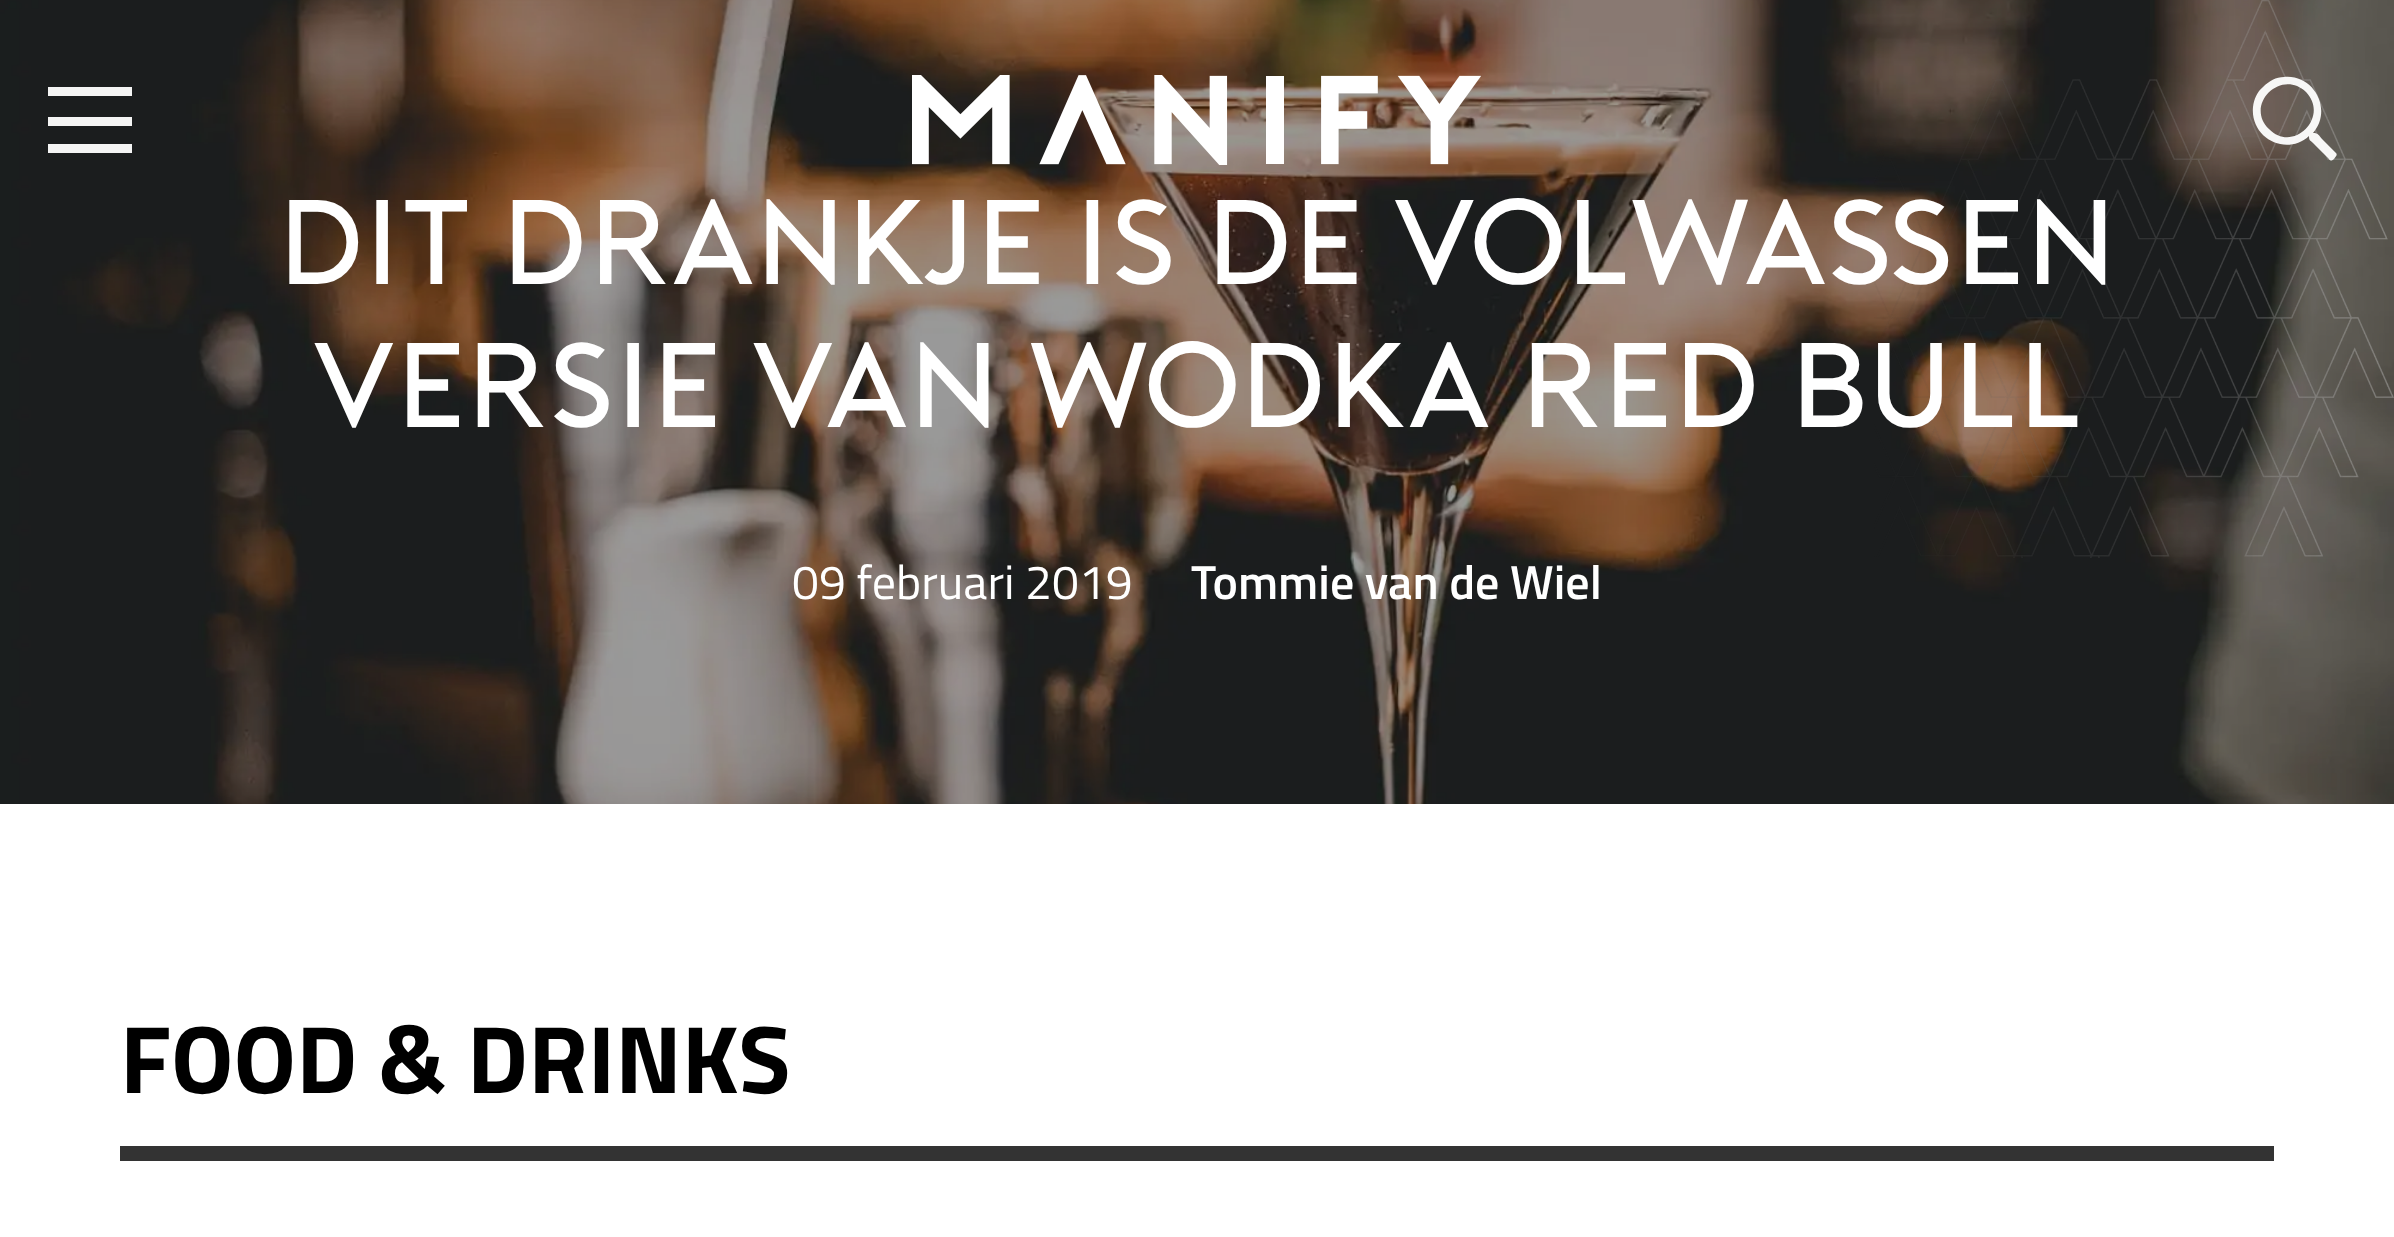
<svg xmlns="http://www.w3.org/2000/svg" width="2394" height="1237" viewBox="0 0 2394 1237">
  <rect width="100%" height="100%" fill="#fff"/>
  <image x="0" y="0" width="2394" height="804" href="img/2.png"/>
  <path d="M48 117h84v9H48z" fill="#f4f4f4"/>
  <path d="M48 87h84v9H48z" fill="#f4f4f4"/>
  <path d="M48 144h84v9H48z" fill="#f4f4f4"/>
  <image x="912" y="75" width="569" height="90" href="img/1.png"/>
  <image x="1874" y="0" width="520" height="558" href="img/3.png"/>
  <path d="M2336 153C2338 155 2335 157 2334 159C2330 162 2330 160 2327 157L2313 143C2310 140 2309 141 2309 136C2286 157 2250 138 2253 107C2254 99 2257 92 2263 87C2269 81 2276 77 2284 77C2314 74 2333 110 2313 133C2319 133 2318 135 2323 140ZM2269 129C2293 154 2330 117 2306 92C2281 68 2244 105 2269 129Z" fill="#fffffff2"/>
  <path d="M120 1146h2154v15H120z" fill="#333"/>
  <g font-family="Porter" font-size="120" font-weight="300" fill="#fff">
    <text x="277" y="284">Dit drankje is de volwassen</text>
    <text x="312" y="427">versie van wodka Red Bull</text>
  </g>
  <text x="792" y="599" font-family="Titillium Web" font-size="48" fill="#fff">09 februari 2019</text>
  <text x="1191" y="599" font-family="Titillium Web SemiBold" font-size="48" font-weight="600" fill="#fff">Tommie van de Wiel</text>
  <text x="120" y="1093" font-family="Titillium Web" font-size="96" font-weight="bold" fill="#000">FOOD &amp; DRINKS</text>
</svg>
